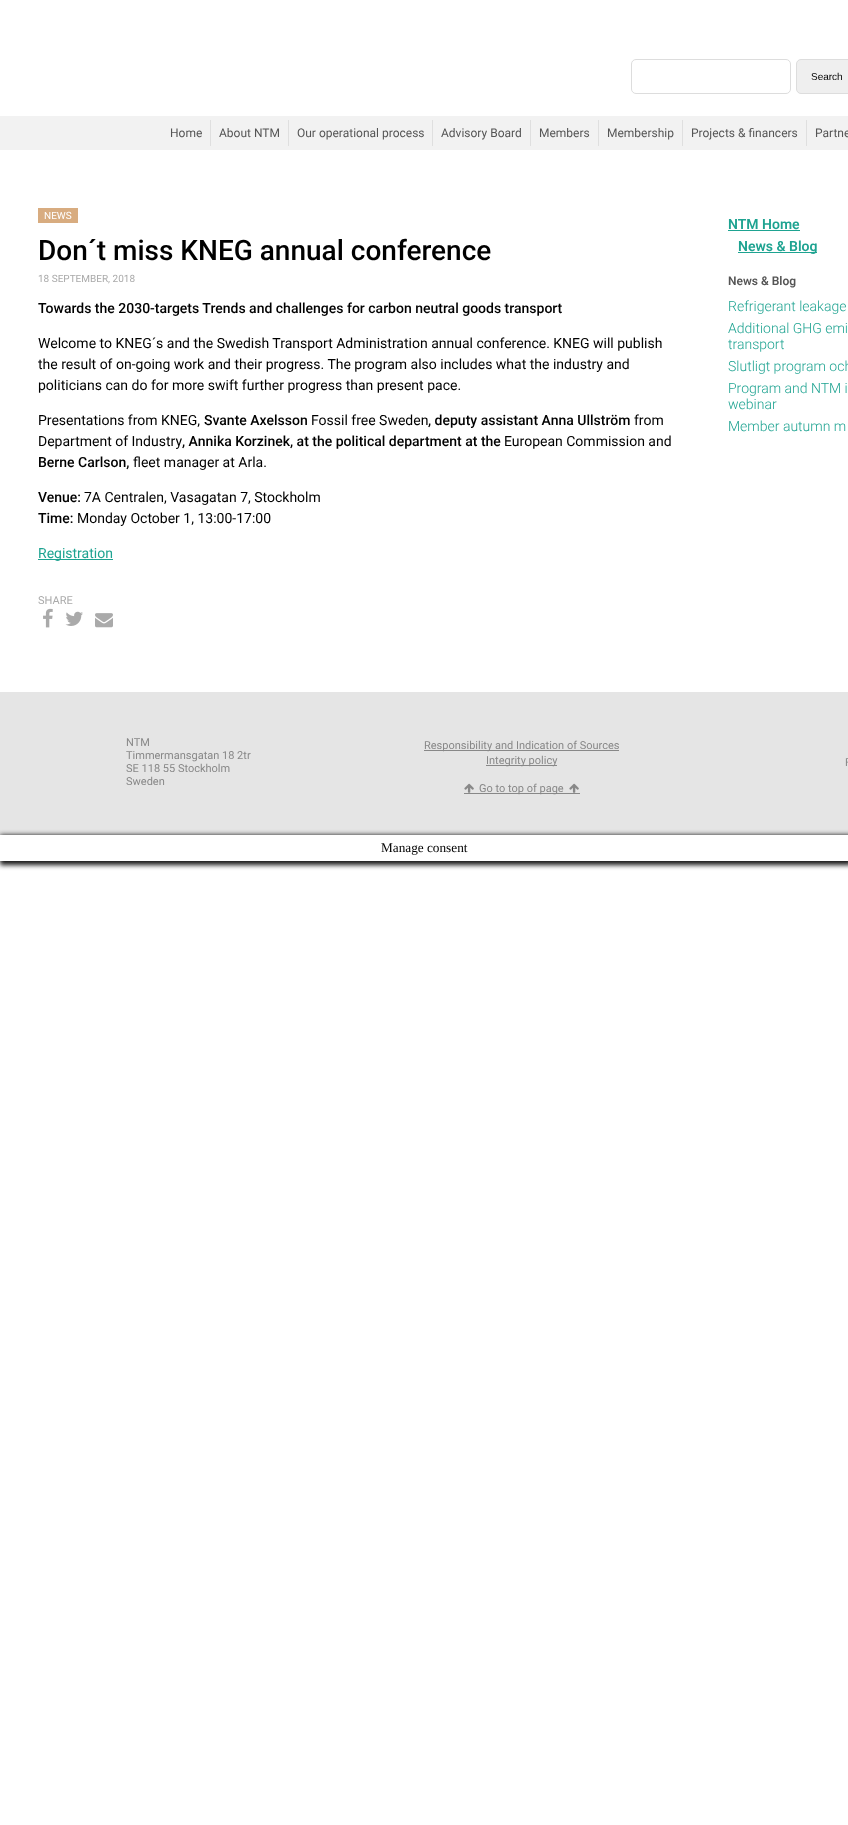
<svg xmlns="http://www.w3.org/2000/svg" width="848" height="1825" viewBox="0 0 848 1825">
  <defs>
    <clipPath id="clip1"><path d="M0 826H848V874H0ZM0 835H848V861H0Z" clip-rule="evenodd"/></clipPath>
  </defs>
  <rect width="100%" height="100%" fill="#fff"/>
  <rect x="631.5" y="59.5" width="159" height="34" rx="4.5" fill="none" stroke="#ddd"/>
  <rect x="796.5" y="59.5" width="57" height="34" rx="4.5" fill="#efefef" stroke="#ddd"/>
  <path d="M0 116h848v34H0z" fill="#f2f2f2"/>
  <path d="M210 120h1v26H210z" fill="#dfdfdf"/>
  <path d="M288 120h1v26H288z" fill="#dfdfdf"/>
  <path d="M432 120h1v26H432z" fill="#dfdfdf"/>
  <path d="M530 120h1v26H530z" fill="#dfdfdf"/>
  <path d="M598 120h1v26H598z" fill="#dfdfdf"/>
  <path d="M682 120h1v26H682z" fill="#dfdfdf"/>
  <path d="M806 120h1v26H806z" fill="#dfdfdf"/>
  <path d="M38 208h40v15H38z" fill="#d8ac80"/>
  <path d="M38 559h75v1H38z" fill="#1ea391"/>
  <image x="43" y="608" width="10" height="20" href="img/1.png"/>
  <image x="65" y="611" width="18" height="15" href="img/2.png"/>
  <image x="95" y="613" width="18" height="15" href="img/3.png"/>
  <path d="M728 230h72v1H728z" fill="#1ea391"/>
  <path d="M738 252h79v1H738z" fill="#1ea391"/>
  <path d="M0 692h848v143H0z" fill="#e5e5e5"/>
  <path d="M424 750h195v1H424z" fill="#888"/>
  <path d="M486 765h71v1H486z" fill="#888"/>
  <path d="M464 793h116v1H464z" fill="#888"/>
  <image x="464" y="783" width="10" height="10" href="img/4.png"/>
  <image x="569" y="783" width="10" height="10" href="img/4.png"/>
  <g clip-path="url(#clip1)">
    <path d="M0 835h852v30H0z" fill="#161616" filter="blur(2.5px)"/>
  </g>
  <text x="811" y="80" font-family="Liberation Sans" font-size="10" fill="#000">Search</text>
  <g font-family="Roboto" font-size="12" fill="#555">
    <text x="170" y="137">Home</text>
    <text x="219" y="137">About NTM</text>
    <text x="297" y="137">Our operational process</text>
    <text x="441" y="137">Advisory Board</text>
    <text x="539" y="137">Members</text>
    <text x="607" y="137">Membership</text>
    <text x="691" y="137">Projects &amp; financers</text>
    <text x="815" y="137">Partne</text>
  </g>
  <text x="44" y="219" font-family="Roboto" font-size="10" fill="#fff">NEWS</text>
  <text x="38" y="260" font-family="Roboto" font-size="28" font-weight="500" fill="#000">Don´t miss KNEG annual conference</text>
  <text x="38" y="282" font-family="Roboto" font-size="10" fill="#aaa">18 SEPTEMBER, 2018</text>
  <text x="38" y="313" font-family="Roboto" font-size="14" font-weight="500" fill="#000">Towards the 2030-targets Trends and challenges for carbon neutral goods transport</text>
  <g font-family="Roboto" font-size="14" fill="#000">
    <text x="38" y="348">Welcome to KNEG´s and the Swedish Transport Administration annual conference. KNEG will publish</text>
    <text x="38" y="369">the result of on-going work and their progress. The program also includes what the industry and</text>
    <text x="38" y="390">politicians can do for more swift further progress than present pace.</text>
    <text x="38" y="425">Presentations from KNEG,</text>
  </g>
  <text x="204" y="425" font-family="Roboto" font-size="14" font-weight="500" fill="#000">Svante Axelsson</text>
  <text x="311" y="425" font-family="Roboto" font-size="14" fill="#000">Fossil free Sweden</text>
  <text x="428" y="425" font-family="Roboto" font-size="14" font-weight="500" fill="#000">, deputy assistant Anna Ullström</text>
  <g font-family="Roboto" font-size="14" fill="#000">
    <text x="634" y="425">from</text>
    <text x="38" y="446">Department of Industry</text>
  </g>
  <text x="182" y="446" font-family="Roboto" font-size="14" font-weight="500" fill="#000">, Annika Korzinek, at the political department at the</text>
  <text x="504" y="446" font-family="Roboto" font-size="14" fill="#000">European Commission and</text>
  <text x="38" y="467" font-family="Roboto" font-size="14" font-weight="500" fill="#000">Berne Carlson,</text>
  <text x="133" y="467" font-family="Roboto" font-size="14" fill="#000">fleet manager at Arla.</text>
  <text x="38" y="502" font-family="Roboto" font-size="14" font-weight="500" fill="#000">Venue:</text>
  <text x="84" y="502" font-family="Roboto" font-size="14" fill="#000">7A Centralen, Vasagatan 7, Stockholm</text>
  <text x="38" y="523" font-family="Roboto" font-size="14" font-weight="500" fill="#000">Time:</text>
  <text x="77" y="523" font-family="Roboto" font-size="14" fill="#000">Monday October 1, 13:00-17:00</text>
  <text x="38" y="558" font-family="Roboto" font-size="14" fill="#1ea391">Registration</text>
  <text x="38" y="604" font-family="Roboto" font-size="11" fill="#aaa">SHARE</text>
  <g font-family="Roboto" font-size="14" font-weight="600" fill="#1ea391">
    <text x="728" y="229">NTM Home</text>
    <text x="738" y="251">News &amp; Blog</text>
  </g>
  <text x="728" y="285" font-family="Roboto" font-size="12" font-weight="600" fill="#555">News &amp; Blog</text>
  <g font-family="Roboto" font-size="14" font-weight="300" fill="#1ea391">
    <text x="728" y="311">Refrigerant leakage</text>
    <text x="728" y="333">Additional GHG emi</text>
    <text x="728" y="349">transport</text>
    <text x="728" y="371">Slutligt program och</text>
    <text x="728" y="393">Program and NTM i</text>
    <text x="728" y="409">webinar</text>
    <text x="728" y="431">Member autumn m</text>
  </g>
  <g font-family="Roboto" font-size="11" fill="#888">
    <text x="126" y="746">NTM</text>
    <text x="126" y="759">Timmermansgatan 18 2tr</text>
    <text x="126" y="772">SE 118 55 Stockholm</text>
    <text x="126" y="785">Sweden</text>
    <text x="424" y="749">Responsibility and Indication of Sources</text>
    <text x="486" y="764">Integrity policy</text>
    <text x="479" y="792">Go to top of page</text>
    <text x="845" y="766">F</text>
  </g>
  <text x="381" y="852" font-family="Liberation Serif" font-size="13.25" fill="#000">Manage consent</text>
</svg>
